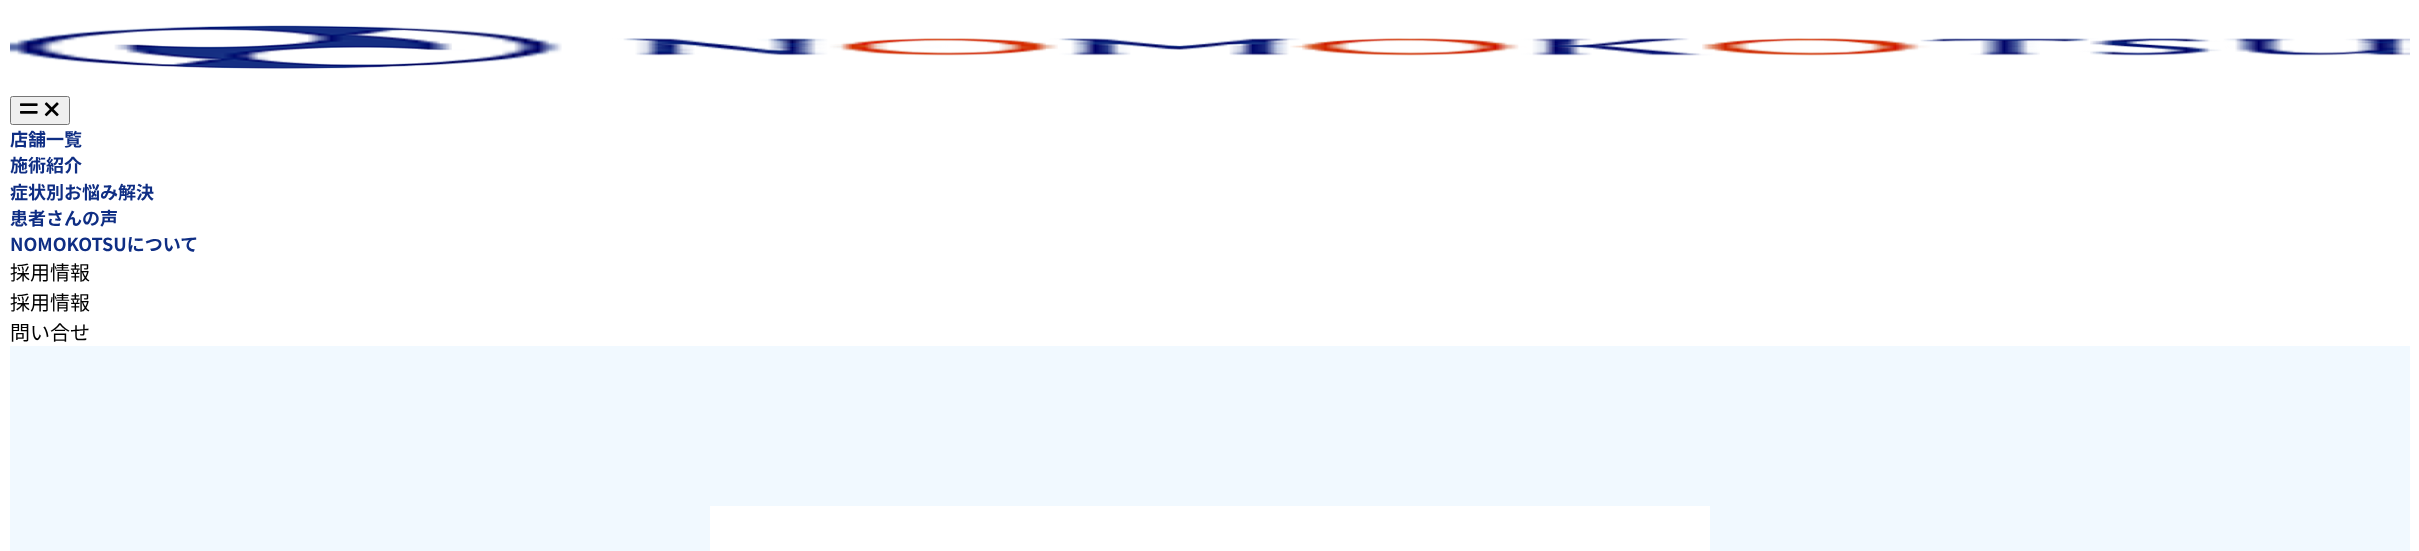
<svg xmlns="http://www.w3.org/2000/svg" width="2419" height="551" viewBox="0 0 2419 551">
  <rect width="100%" height="100%" fill="#fff"/>
  <image x="10" y="25" width="2400" height="44" href="img/1.png"/>
  <rect x="10.5" y="96.5" width="59" height="28" rx="2" fill="#efefef" stroke="#767676"/>
  <image x="20" y="103" width="18" height="11" href="img/2.png"/>
  <image x="44" y="102" width="15" height="15" href="img/3.png"/>
  <path d="M10 346h2400v205H10z" fill="#f1f9ff"/>
  <path d="M710 506h1000v45H710z" fill="#fff"/>
  <g font-family="Noto Sans JP" font-size="18" font-weight="bold" fill="#0f2e84">
    <text x="10" y="146">店舗一覧</text>
    <text x="10" y="172">施術紹介</text>
    <text x="10" y="199">症状別お悩み解決</text>
    <text x="10" y="225">患者さんの声</text>
    <text x="10" y="251">NOMOKOTSUについて</text>
  </g>
  <g font-family="Noto Sans JP" font-size="20" fill="#000">
    <text x="10" y="280">採用情報</text>
    <text x="10" y="310">採用情報</text>
    <text x="10" y="340">問い合せ</text>
  </g>
</svg>
